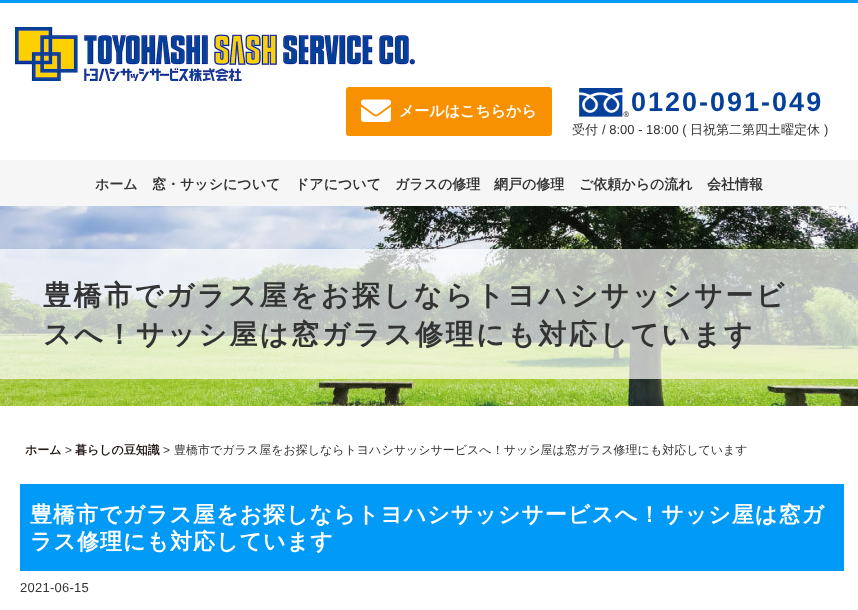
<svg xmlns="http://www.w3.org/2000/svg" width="858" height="610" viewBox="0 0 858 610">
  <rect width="100%" height="100%" fill="#fff"/>
  <path d="M0 0h858v3H0z" fill="#029af7"/>
  <image x="15" y="27" width="400" height="54" href="img/1.png"/>
  <rect x="346" y="87" width="206" height="49" rx="3" fill="#f79102"/>
  <image x="361" y="99" width="30" height="23" href="img/2.png"/>
  <image x="579" y="88" width="50" height="29" href="img/3.png"/>
  <path d="M0 160h858v46H0z" fill="#f6f6f6"/>
  <image x="0" y="206" width="858" height="200" href="img/4.png"/>
  <path d="M0 249h858v130H0z" fill="#ffffffb3"/>
  <path d="M20 484h824v87H20z" fill="#029af7"/>
  <text x="399" y="116" font-family="WenQuanYi Zen Hei" font-size="15" font-weight="bold" fill="#fff">メールはこちらから</text>
  <text x="631" y="111" font-family="Liberation Sans" font-size="27" font-weight="bold" letter-spacing="2" fill="#044099">0120-091-049</text>
  <text x="572" y="134" font-family="WenQuanYi Zen Hei" font-size="13" font-weight="500" fill="#333">受付</text>
  <text x="602" y="134" font-family="Liberation Sans" font-size="13" fill="#333">/ 8:00 - 18:00 (</text>
  <text x="690" y="134" font-family="WenQuanYi Zen Hei" font-size="13" font-weight="500" fill="#333">日祝第二第四土曜定休</text>
  <text x="824" y="134" font-family="Liberation Sans" font-size="13" fill="#333">)</text>
  <g font-family="WenQuanYi Zen Hei" font-size="14" font-weight="bold" fill="#333">
    <text x="95" y="189">ホーム</text>
    <text x="152" y="189">窓・サッシについて</text>
    <text x="295" y="189">ドアについて</text>
    <text x="395" y="189">ガラスの修理</text>
    <text x="494" y="189">網戸の修理</text>
    <text x="579" y="189">ご依頼からの流れ</text>
    <text x="707" y="189">会社情報</text>
  </g>
  <g font-family="WenQuanYi Zen Hei" font-size="28" font-weight="bold" letter-spacing="2.5" fill="#333">
    <text x="43" y="305">豊橋市でガラス屋をお探しならトヨハシサッシサービ</text>
    <text x="43" y="344">スへ！サッシ屋は窓ガラス修理にも対応しています</text>
  </g>
  <text x="25" y="454" font-family="WenQuanYi Zen Hei" font-size="12" font-weight="bold" fill="#221815">ホーム</text>
  <text x="65" y="454" font-family="Liberation Sans" font-size="12" fill="#333">&gt;</text>
  <text x="75" y="454" font-family="WenQuanYi Zen Hei" font-size="12" font-weight="bold" fill="#221815">暮らしの豆知識</text>
  <text x="163" y="454" font-family="Liberation Sans" font-size="12" fill="#333">&gt;</text>
  <text x="174" y="454" font-family="WenQuanYi Zen Hei" font-size="12" font-weight="500" fill="#333">豊橋市でガラス屋をお探しならトヨハシサッシサービスへ！サッシ屋は窓ガラス修理にも対応しています</text>
  <g font-family="WenQuanYi Zen Hei" font-size="22" font-weight="bold" letter-spacing="1" fill="#fff">
    <text x="30" y="522">豊橋市でガラス屋をお探しならトヨハシサッシサービスへ！サッシ屋は窓ガ</text>
    <text x="30" y="549">ラス修理にも対応しています</text>
  </g>
  <text x="20" y="592" font-family="Liberation Sans" font-size="13" letter-spacing="0.25" fill="#333">2021-06-15</text>
</svg>
